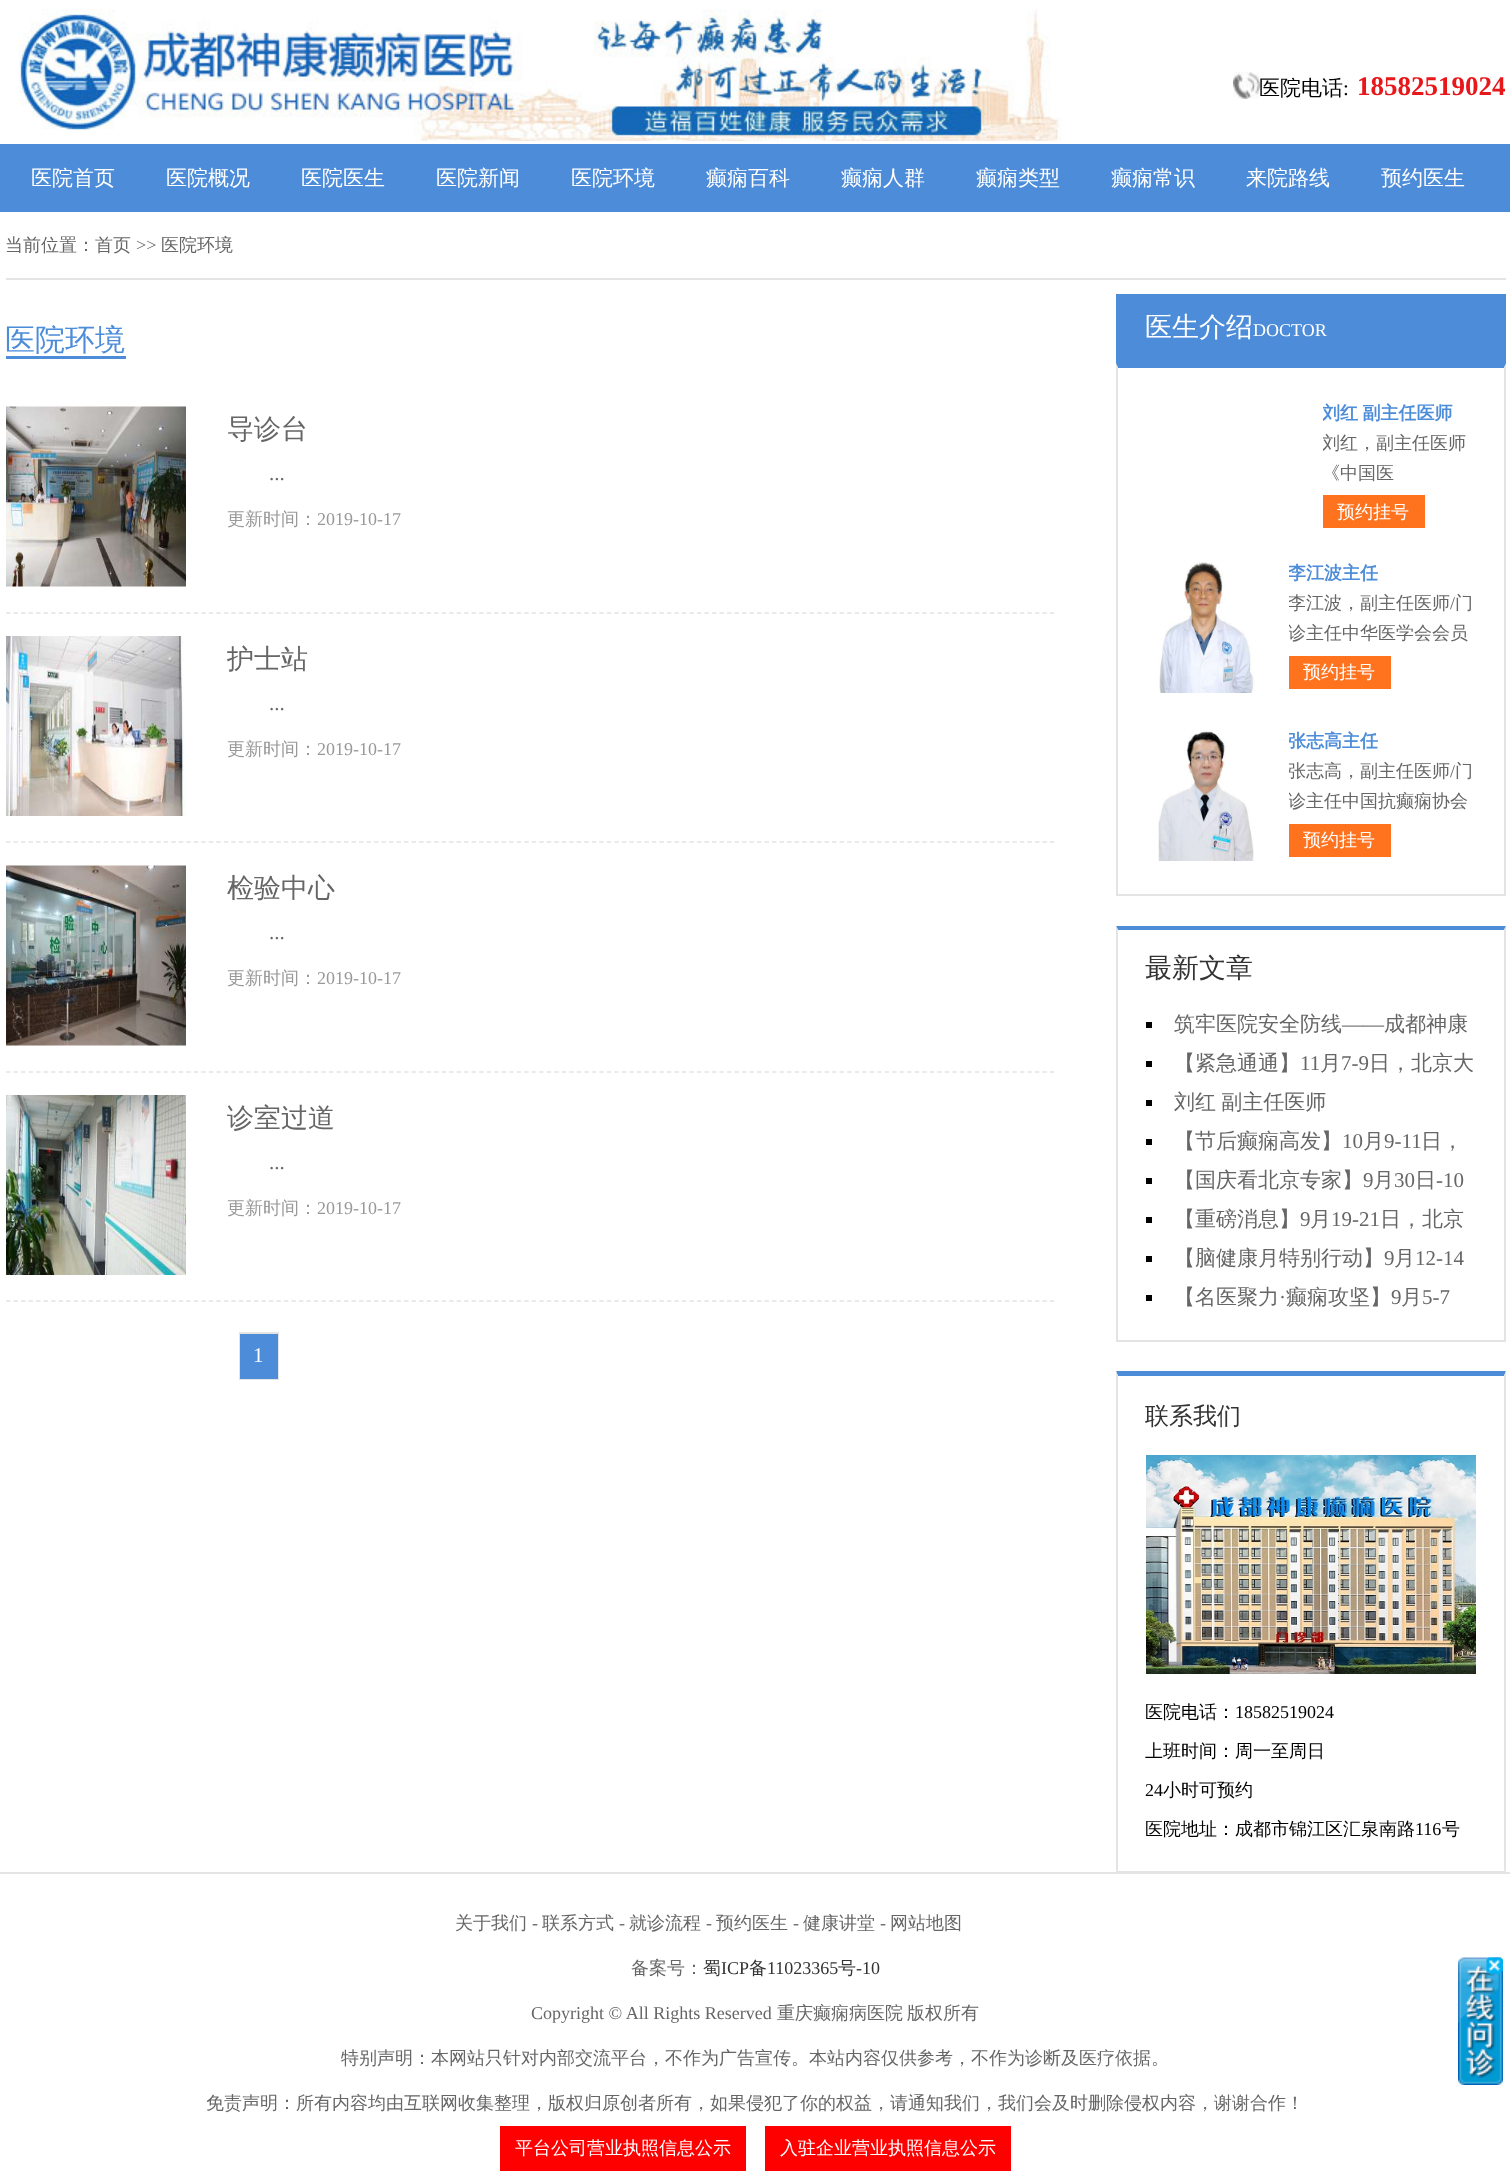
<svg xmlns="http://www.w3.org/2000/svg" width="1510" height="2177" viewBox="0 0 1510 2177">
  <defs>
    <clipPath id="clip1"><path d="M1323 398h153v130H1323z"/></clipPath>
    <clipPath id="clip2"><path d="M1289 558h187v131H1289z"/></clipPath>
    <clipPath id="clip3"><path d="M1289 726h187v131H1289z"/></clipPath>
  </defs>
  <rect width="100%" height="100%" fill="#fff"/>
  <image x="18" y="9" width="1044" height="132" href="img/1.png"/>
  <image x="1233" y="72" width="27" height="27" href="img/2.png"/>
  <path d="M0 144h1510v68H0z" fill="#4c8cd9"/>
  <path d="M6 278h1500v2H6z" fill="#e4e4e4"/>
  <path d="M6 356h120v3H6z" fill="#4c8cd9"/>
  <path d="M6 613H1056" fill="none" stroke="#e4e4e4" stroke-width="1.5" stroke-dasharray="4.5 3.01"/>
  <image x="6" y="406" width="180" height="181" href="img/3.png"/>
  <path d="M6 842H1056" fill="none" stroke="#e4e4e4" stroke-width="1.5" stroke-dasharray="4.5 3.01"/>
  <image x="6" y="636" width="180" height="180" href="img/4.png"/>
  <path d="M6 1072H1056" fill="none" stroke="#e4e4e4" stroke-width="1.5" stroke-dasharray="4.5 3.01"/>
  <image x="6" y="865" width="180" height="181" href="img/5.png"/>
  <path d="M6 1301H1056" fill="none" stroke="#e4e4e4" stroke-width="1.5" stroke-dasharray="4.5 3.01"/>
  <image x="6" y="1095" width="180" height="180" href="img/6.png"/>
  <path d="M240 1333h38v46H240z" fill="none" stroke="#e4e4e4" stroke-width="2"/>
  <path d="M240 1334h38v45H240z" fill="#4c8cd9"/>
  <path d="M1116 294h390v71H1116z" fill="#4c8cd9"/>
  <path d="M1116 363H1506L1504 368H1118Z" fill="#4c8cd9"/>
  <path d="M1506 363V896L1504 894V368Z" fill="#e4e4e4"/>
  <path d="M1116 894h390v2H1116z" fill="#e4e4e4"/>
  <path d="M1116 896V363L1118 368V894Z" fill="#e4e4e4"/>
  <path d="M1323 495h102v33H1323z" fill="#ff731e"/>
  <image x="1159" y="562" width="96" height="131" href="img/7.png"/>
  <path d="M1289 656h102v33H1289z" fill="#ff731e"/>
  <image x="1158" y="730" width="96" height="131" href="img/8.png"/>
  <path d="M1289 824h102v33H1289z" fill="#ff731e"/>
  <path d="M1116 926H1506L1504 930H1118Z" fill="#4c8cd9"/>
  <path d="M1506 926V1341L1504 1340V930Z" fill="#e4e4e4"/>
  <path d="M1116 1340h390v2H1116z" fill="#e4e4e4"/>
  <path d="M1116 1341V926L1118 930V1340Z" fill="#e4e4e4"/>
  <path d="M1146 1022h6v6H1146z" fill="#000"/>
  <path d="M1146 1061h6v6H1146z" fill="#000"/>
  <path d="M1146 1100h6v6H1146z" fill="#000"/>
  <path d="M1146 1139h6v6H1146z" fill="#000"/>
  <path d="M1146 1178h6v6H1146z" fill="#000"/>
  <path d="M1146 1217h6v6H1146z" fill="#000"/>
  <path d="M1146 1256h6v6H1146z" fill="#000"/>
  <path d="M1146 1295h6v6H1146z" fill="#000"/>
  <path d="M1116 1371H1506L1504 1376H1118Z" fill="#4c8cd9"/>
  <path d="M1506 1371V1872L1504 1870V1376Z" fill="#e4e4e4"/>
  <path d="M1116 1871h390v1H1116z" fill="#e4e4e4"/>
  <path d="M1116 1872V1371L1118 1376V1870Z" fill="#e4e4e4"/>
  <image x="1146" y="1455" width="330" height="219" href="img/9.png"/>
  <path d="M0 1872h1510v2H0z" fill="#e4e4e4"/>
  <path d="M500 2126h246v45H500z" fill="#f00"/>
  <path d="M765 2126h246v45H765z" fill="#f00"/>
  <image x="1458" y="1957" width="45" height="128" href="img/10.png"/>
  <image x="1486" y="1957" width="17" height="18" href="img/11.png"/>
  <text x="1259" y="95" font-family="WenQuanYi Zen Hei" font-size="21" font-weight="500" fill="#000">医院电话</text>
  <text x="1343" y="95" font-family="Liberation Serif" font-size="21" fill="#000">:</text>
  <text x="1357" y="95" font-family="Liberation Serif" font-size="27" font-weight="bold" fill="#e8171a">18582519024</text>
  <g font-family="WenQuanYi Zen Hei" font-size="21" font-weight="500" fill="#fff">
    <text x="31" y="185">医院首页</text>
    <text x="166" y="185">医院概况</text>
    <text x="301" y="185">医院医生</text>
    <text x="436" y="185">医院新闻</text>
    <text x="571" y="185">医院环境</text>
    <text x="706" y="185">癫痫百科</text>
    <text x="841" y="185">癫痫人群</text>
    <text x="976" y="185">癫痫类型</text>
    <text x="1111" y="185">癫痫常识</text>
    <text x="1246" y="185">来院路线</text>
    <text x="1381" y="185">预约医生</text>
  </g>
  <text x="5" y="251" font-family="WenQuanYi Zen Hei" font-size="18" font-weight="500" fill="#666">当前位置：首页</text>
  <text x="136" y="251" font-family="Liberation Serif" font-size="18" fill="#666">&gt;&gt;</text>
  <text x="161" y="251" font-family="WenQuanYi Zen Hei" font-size="18" font-weight="500" fill="#666">医院环境</text>
  <text x="5" y="350" font-family="WenQuanYi Zen Hei" font-size="30" font-weight="500" fill="#4c8cd9">医院环境</text>
  <text x="227" y="438" font-family="WenQuanYi Zen Hei" font-size="27" font-weight="500" fill="#666">导诊台</text>
  <text x="269" y="480" font-family="Liberation Serif" font-size="21" fill="#666">...</text>
  <text x="227" y="525" font-family="WenQuanYi Zen Hei" font-size="18" font-weight="500" fill="#999">更新时间：</text>
  <text x="317" y="525" font-family="Liberation Serif" font-size="18" fill="#999">2019-10-17</text>
  <text x="227" y="668" font-family="WenQuanYi Zen Hei" font-size="27" font-weight="500" fill="#666">护士站</text>
  <text x="269" y="710" font-family="Liberation Serif" font-size="21" fill="#666">...</text>
  <text x="227" y="755" font-family="WenQuanYi Zen Hei" font-size="18" font-weight="500" fill="#999">更新时间：</text>
  <text x="317" y="755" font-family="Liberation Serif" font-size="18" fill="#999">2019-10-17</text>
  <text x="227" y="897" font-family="WenQuanYi Zen Hei" font-size="27" font-weight="500" fill="#666">检验中心</text>
  <text x="269" y="939" font-family="Liberation Serif" font-size="21" fill="#666">...</text>
  <text x="227" y="984" font-family="WenQuanYi Zen Hei" font-size="18" font-weight="500" fill="#999">更新时间：</text>
  <text x="317" y="984" font-family="Liberation Serif" font-size="18" fill="#999">2019-10-17</text>
  <text x="227" y="1127" font-family="WenQuanYi Zen Hei" font-size="27" font-weight="500" fill="#666">诊室过道</text>
  <text x="269" y="1169" font-family="Liberation Serif" font-size="21" fill="#666">...</text>
  <text x="227" y="1214" font-family="WenQuanYi Zen Hei" font-size="18" font-weight="500" fill="#999">更新时间：</text>
  <text x="317" y="1214" font-family="Liberation Serif" font-size="18" fill="#999">2019-10-17</text>
  <text x="253" y="1362" font-family="Liberation Serif" font-size="21" fill="#fff">1</text>
  <text x="1145" y="336" font-family="WenQuanYi Zen Hei" font-size="27" font-weight="500" fill="#fff">医生介绍</text>
  <text x="1253" y="336" font-family="Liberation Serif" font-size="18" fill="#fff">DOCTOR</text>
  <g clip-path="url(#clip1)">
    <text x="1322" y="419" word-spacing="-1" font-family="WenQuanYi Zen Hei" font-size="18" font-weight="bold" fill="#4c8cd9">刘红 副主任医师</text>
    <text x="1322" y="449" font-family="WenQuanYi Zen Hei" font-size="18" font-weight="500" fill="#666">刘红，副主任医师</text>
  </g>
  <text x="1322" y="479" font-family="WenQuanYi Zen Hei" font-size="18" font-weight="500" fill="#666">《中国医</text>
  <text x="1337" y="518" font-family="WenQuanYi Zen Hei" font-size="18" font-weight="500" fill="#fff">预约挂号</text>
  <g clip-path="url(#clip2)">
    <text x="1288" y="579" font-family="WenQuanYi Zen Hei" font-size="18" font-weight="bold" fill="#4c8cd9">李江波主任</text>
    <text x="1288" y="609" font-family="WenQuanYi Zen Hei" font-size="18" font-weight="500" fill="#666">李江波，副主任医师</text>
  </g>
  <text x="1450" y="609" font-family="Liberation Serif" font-size="18" fill="#666">/</text>
  <text x="1455" y="609" font-family="WenQuanYi Zen Hei" font-size="18" font-weight="500" fill="#666">门</text>
  <g clip-path="url(#clip2)">
    <text x="1288" y="639" font-family="WenQuanYi Zen Hei" font-size="18" font-weight="500" fill="#666">诊主任中华医学会会员</text>
  </g>
  <text x="1303" y="678" font-family="WenQuanYi Zen Hei" font-size="18" font-weight="500" fill="#fff">预约挂号</text>
  <g clip-path="url(#clip3)">
    <text x="1288" y="747" font-family="WenQuanYi Zen Hei" font-size="18" font-weight="bold" fill="#4c8cd9">张志高主任</text>
    <text x="1288" y="777" font-family="WenQuanYi Zen Hei" font-size="18" font-weight="500" fill="#666">张志高，副主任医师</text>
  </g>
  <text x="1450" y="777" font-family="Liberation Serif" font-size="18" fill="#666">/</text>
  <text x="1455" y="777" font-family="WenQuanYi Zen Hei" font-size="18" font-weight="500" fill="#666">门</text>
  <g clip-path="url(#clip3)">
    <text x="1288" y="807" font-family="WenQuanYi Zen Hei" font-size="18" font-weight="500" fill="#666">诊主任中国抗癫痫协会</text>
  </g>
  <text x="1303" y="846" font-family="WenQuanYi Zen Hei" font-size="18" font-weight="500" fill="#fff">预约挂号</text>
  <text x="1145" y="977" font-family="WenQuanYi Zen Hei" font-size="27" font-weight="500" fill="#333">最新文章</text>
  <text x="1174" y="1031" font-family="WenQuanYi Zen Hei" font-size="21" font-weight="500" fill="#666">筑牢医院安全防线</text>
  <text x="1342" y="1031" font-family="Liberation Serif" font-size="21" fill="#666">——</text>
  <g font-family="WenQuanYi Zen Hei" font-size="21" font-weight="500" fill="#666">
    <text x="1384" y="1031">成都神康</text>
    <text x="1174" y="1070">【紧急通通】</text>
  </g>
  <text x="1300" y="1070" font-family="Liberation Serif" font-size="21" fill="#666">11</text>
  <text x="1320" y="1070" font-family="WenQuanYi Zen Hei" font-size="21" font-weight="500" fill="#666">月</text>
  <text x="1341" y="1070" font-family="Liberation Serif" font-size="21" fill="#666">7-9</text>
  <g font-family="WenQuanYi Zen Hei" font-size="21" font-weight="500" fill="#666">
    <text x="1369" y="1070">日，北京大</text>
    <text x="1174" y="1109" word-spacing="-1">刘红 副主任医师</text>
    <text x="1174" y="1148">【节后癫痫高发】</text>
  </g>
  <text x="1342" y="1148" font-family="Liberation Serif" font-size="21" fill="#666">10</text>
  <text x="1363" y="1148" font-family="WenQuanYi Zen Hei" font-size="21" font-weight="500" fill="#666">月</text>
  <text x="1384" y="1148" font-family="Liberation Serif" font-size="21" fill="#666">9-11</text>
  <g font-family="WenQuanYi Zen Hei" font-size="21" font-weight="500" fill="#666">
    <text x="1421" y="1148">日，</text>
    <text x="1174" y="1187">【国庆看北京专家】</text>
  </g>
  <text x="1363" y="1187" font-family="Liberation Serif" font-size="21" fill="#666">9</text>
  <text x="1373" y="1187" font-family="WenQuanYi Zen Hei" font-size="21" font-weight="500" fill="#666">月</text>
  <text x="1394" y="1187" font-family="Liberation Serif" font-size="21" fill="#666">30</text>
  <text x="1415" y="1187" font-family="WenQuanYi Zen Hei" font-size="21" font-weight="500" fill="#666">日</text>
  <text x="1436" y="1187" font-family="Liberation Serif" font-size="21" fill="#666">-10</text>
  <text x="1174" y="1226" font-family="WenQuanYi Zen Hei" font-size="21" font-weight="500" fill="#666">【重磅消息】</text>
  <text x="1300" y="1226" font-family="Liberation Serif" font-size="21" fill="#666">9</text>
  <text x="1310" y="1226" font-family="WenQuanYi Zen Hei" font-size="21" font-weight="500" fill="#666">月</text>
  <text x="1331" y="1226" font-family="Liberation Serif" font-size="21" fill="#666">19-21</text>
  <g font-family="WenQuanYi Zen Hei" font-size="21" font-weight="500" fill="#666">
    <text x="1380" y="1226">日，北京</text>
    <text x="1174" y="1265">【脑健康月特别行动】</text>
  </g>
  <text x="1384" y="1265" font-family="Liberation Serif" font-size="21" fill="#666">9</text>
  <text x="1394" y="1265" font-family="WenQuanYi Zen Hei" font-size="21" font-weight="500" fill="#666">月</text>
  <text x="1415" y="1265" font-family="Liberation Serif" font-size="21" fill="#666">12-14</text>
  <text x="1174" y="1304" font-family="WenQuanYi Zen Hei" font-size="21" font-weight="500" fill="#666">【名医聚力</text>
  <text x="1279" y="1304" font-family="Liberation Serif" font-size="21" fill="#666">·</text>
  <text x="1286" y="1304" font-family="WenQuanYi Zen Hei" font-size="21" font-weight="500" fill="#666">癫痫攻坚】</text>
  <text x="1391" y="1304" font-family="Liberation Serif" font-size="21" fill="#666">9</text>
  <text x="1401" y="1304" font-family="WenQuanYi Zen Hei" font-size="21" font-weight="500" fill="#666">月</text>
  <text x="1422" y="1304" font-family="Liberation Serif" font-size="21" fill="#666">5-7</text>
  <text x="1145" y="1424" font-family="WenQuanYi Zen Hei" font-size="24" font-weight="500" fill="#333">联系我们</text>
  <text x="1145" y="1718" font-family="WenQuanYi Zen Hei" font-size="18" font-weight="500" fill="#000">医院电话：</text>
  <text x="1235" y="1718" font-family="Liberation Serif" font-size="18" fill="#000">18582519024</text>
  <text x="1145" y="1757" font-family="WenQuanYi Zen Hei" font-size="18" font-weight="500" fill="#000">上班时间：周一至周日</text>
  <text x="1145" y="1796" font-family="Liberation Serif" font-size="18" fill="#000">24</text>
  <g font-family="WenQuanYi Zen Hei" font-size="18" font-weight="500" fill="#000">
    <text x="1163" y="1796">小时可预约</text>
    <text x="1145" y="1835">医院地址：成都市锦江区汇泉南路</text>
  </g>
  <text x="1415" y="1835" font-family="Liberation Serif" font-size="18" fill="#000">116</text>
  <text x="1442" y="1835" font-family="WenQuanYi Zen Hei" font-size="18" font-weight="500" fill="#000">号</text>
  <text x="455" y="1929" font-family="WenQuanYi Zen Hei" font-size="18" font-weight="500" fill="#666">关于我们</text>
  <text x="532" y="1929" font-family="Liberation Serif" font-size="18" fill="#666">-</text>
  <text x="542" y="1929" font-family="WenQuanYi Zen Hei" font-size="18" font-weight="500" fill="#666">联系方式</text>
  <text x="619" y="1929" font-family="Liberation Serif" font-size="18" fill="#666">-</text>
  <text x="629" y="1929" font-family="WenQuanYi Zen Hei" font-size="18" font-weight="500" fill="#666">就诊流程</text>
  <text x="706" y="1929" font-family="Liberation Serif" font-size="18" fill="#666">-</text>
  <text x="716" y="1929" font-family="WenQuanYi Zen Hei" font-size="18" font-weight="500" fill="#666">预约医生</text>
  <text x="793" y="1929" font-family="Liberation Serif" font-size="18" fill="#666">-</text>
  <text x="803" y="1929" font-family="WenQuanYi Zen Hei" font-size="18" font-weight="500" fill="#666">健康讲堂</text>
  <text x="880" y="1929" font-family="Liberation Serif" font-size="18" fill="#666">-</text>
  <g font-family="WenQuanYi Zen Hei" font-size="18" font-weight="500" fill="#666">
    <text x="890" y="1929">网站地图</text>
    <text x="631" y="1974">备案号：</text>
  </g>
  <text x="703" y="1974" font-family="WenQuanYi Zen Hei" font-size="18" font-weight="500" fill="#333">蜀</text>
  <text x="721" y="1974" font-family="Liberation Serif" font-size="18" fill="#333">ICP</text>
  <text x="749" y="1974" font-family="WenQuanYi Zen Hei" font-size="18" font-weight="500" fill="#333">备</text>
  <text x="767" y="1974" font-family="Liberation Serif" font-size="18" fill="#333">11023365</text>
  <text x="838" y="1974" font-family="WenQuanYi Zen Hei" font-size="18" font-weight="500" fill="#333">号</text>
  <text x="856" y="1974" font-family="Liberation Serif" font-size="18" fill="#333">-10</text>
  <text x="531" y="2019" font-family="Liberation Serif" font-size="18" fill="#666">Copyright © All Rights Reserved</text>
  <g font-family="WenQuanYi Zen Hei" font-size="18" font-weight="500" fill="#666">
    <text x="777" y="2019">重庆癫痫病医院</text>
    <text x="907" y="2019">版权所有</text>
    <text x="341" y="2064">特别声明：本网站只针对内部交流平台，不作为广告宣传。本站内容仅供参考，不作为诊断及医疗依据。</text>
    <text x="206" y="2109">免责声明：所有内容均由互联网收集整理，版权归原创者所有，如果侵犯了你的权益，请通知我们，我们会及时删除侵权内容，谢谢合作！</text>
  </g>
  <g font-family="WenQuanYi Zen Hei" font-size="18" font-weight="500" fill="#fff">
    <text x="515" y="2154">平台公司营业执照信息公示</text>
    <text x="780" y="2154">入驻企业营业执照信息公示</text>
  </g>
</svg>
